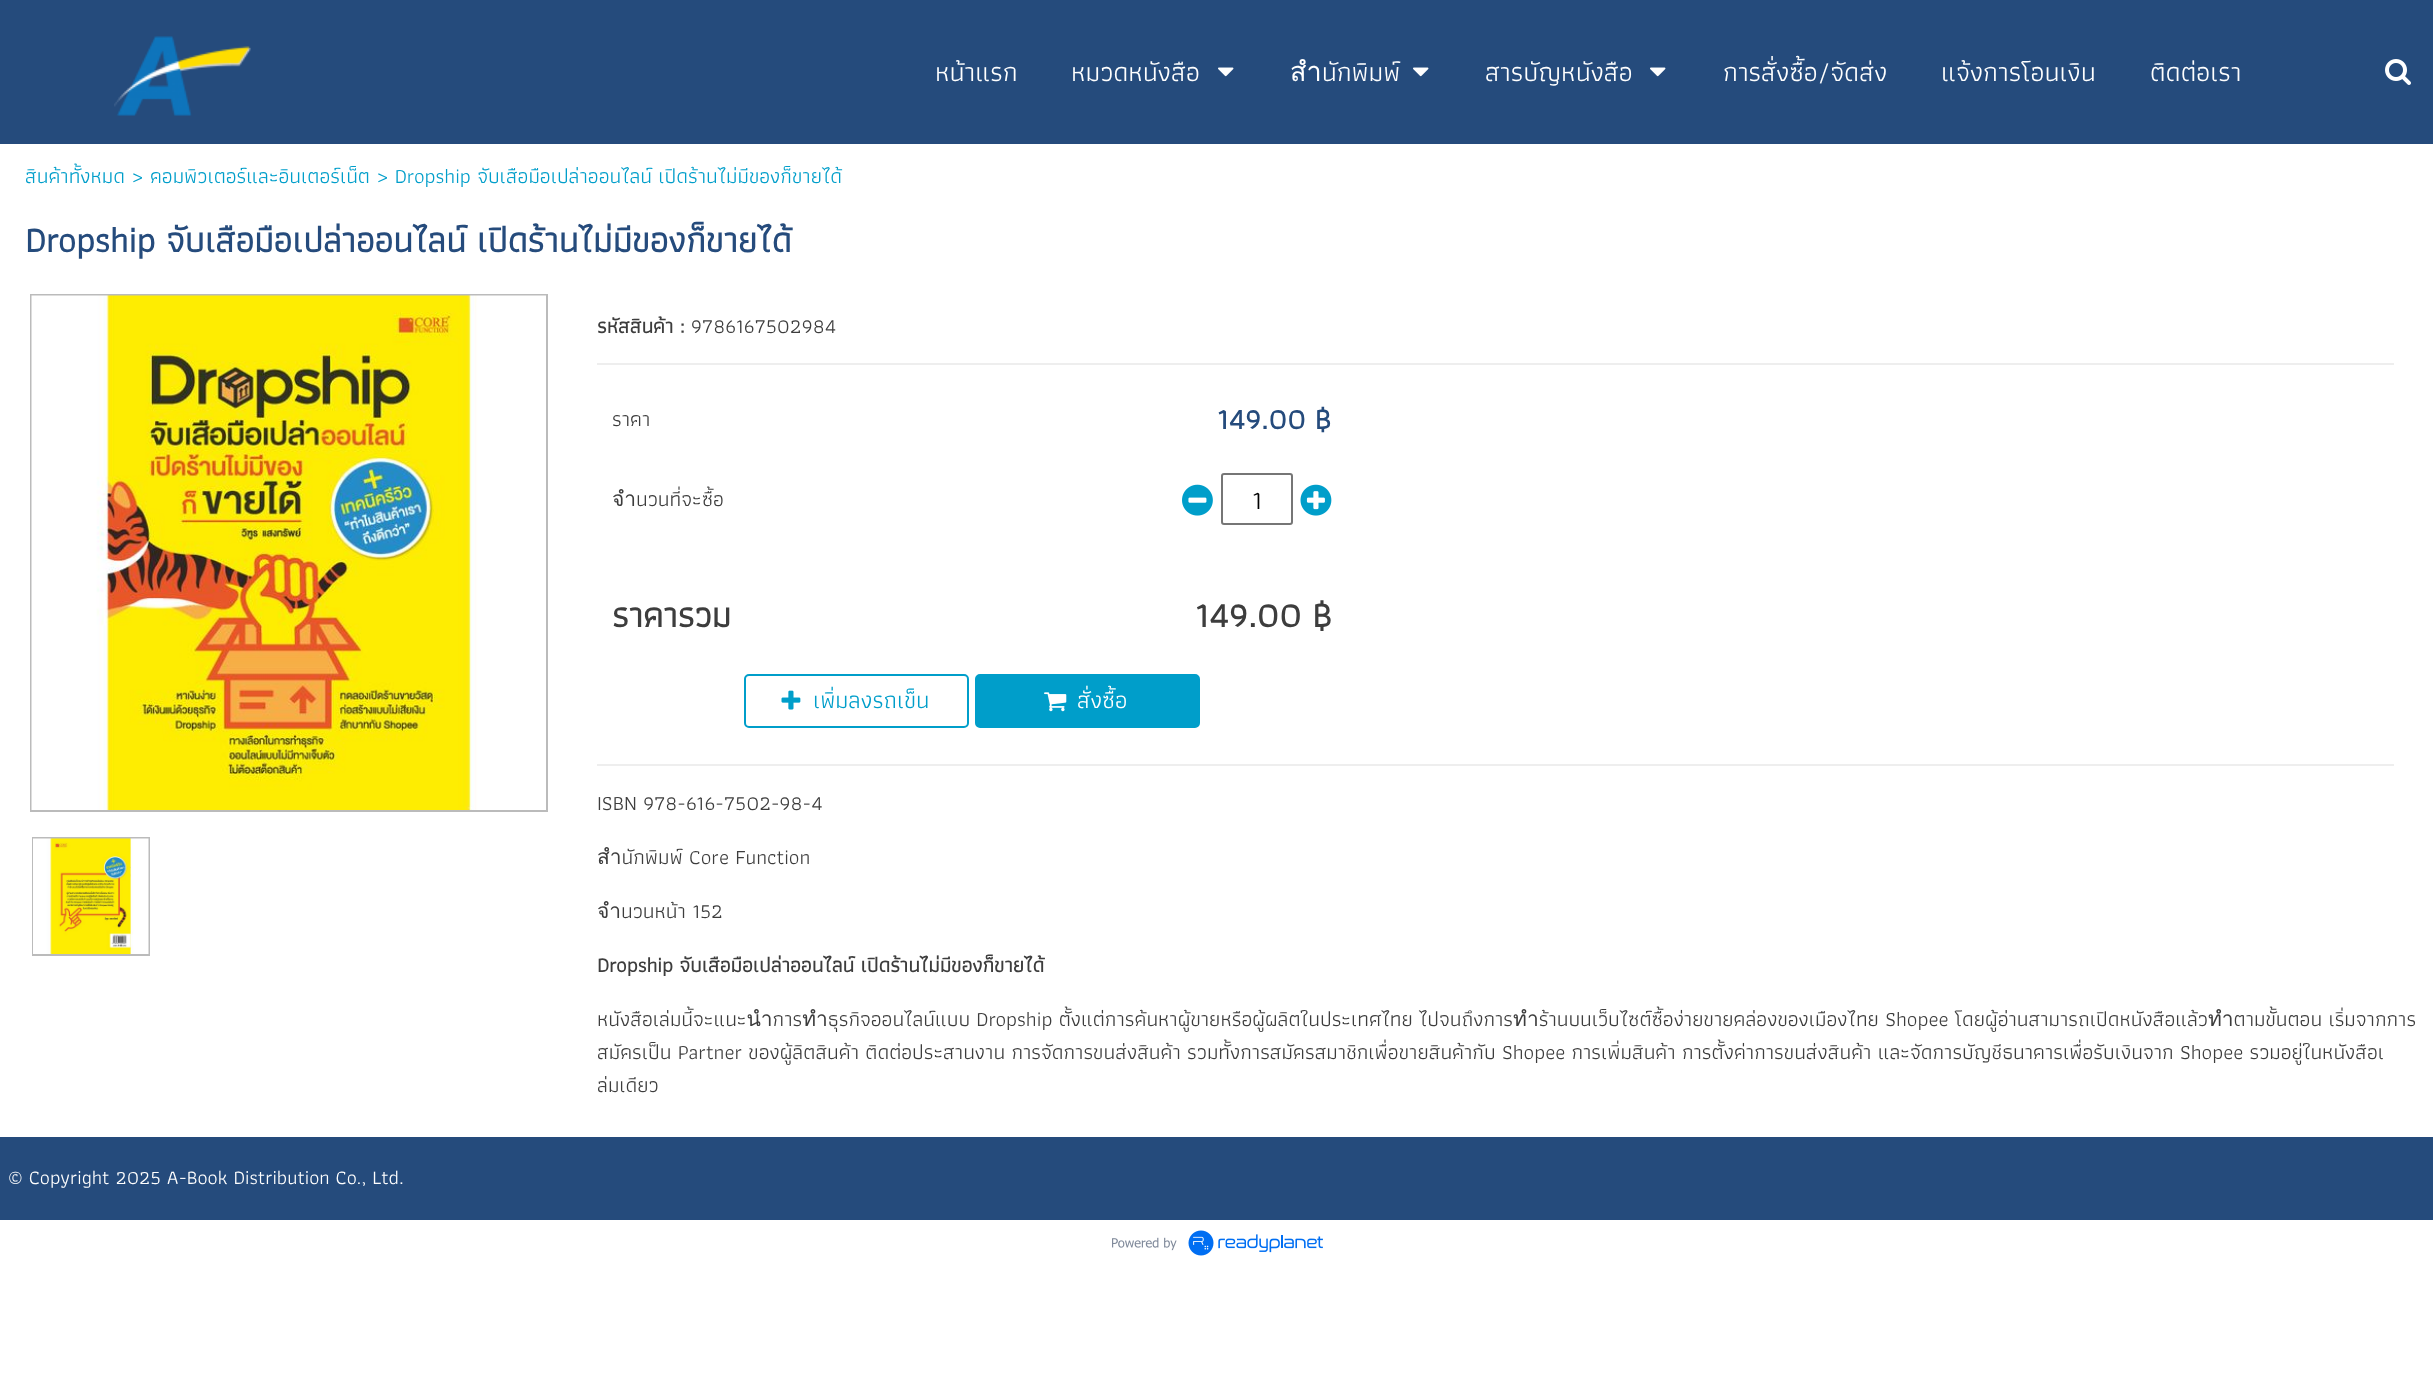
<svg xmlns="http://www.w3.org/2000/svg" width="2433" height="1377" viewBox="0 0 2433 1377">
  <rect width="100%" height="100%" fill="#fff"/>
  <path d="M0 0h2433v144H0z" fill="#254b7c"/>
  <image x="114" y="36" width="137" height="80" href="img/1.png"/>
  <image x="1218" y="67" width="16" height="10" href="img/2.png"/>
  <image x="1413" y="67" width="16" height="10" href="img/2.png"/>
  <image x="1650" y="67" width="16" height="10" href="img/2.png"/>
  <image x="2385" y="59" width="26" height="26" href="img/3.png"/>
  <path d="M31 295h516v516H31z" fill="none" stroke="#bbb" stroke-width="2"/>
  <image x="31" y="295" width="515" height="515" href="img/4.png"/>
  <path d="M33 838h116v117H33z" fill="none" stroke="#bbb" stroke-width="2"/>
  <image x="33" y="838" width="116" height="116" href="img/5.png"/>
  <path d="M597 363h1797v2H597z" fill="#eee"/>
  <path d="M597 764h1797v2H597z" fill="#eee"/>
  <image x="1182" y="484" width="31" height="32" href="img/6.png"/>
  <rect x="1222" y="474" width="70" height="50" rx="2" fill="none" stroke="#767676" stroke-width="2"/>
  <image x="1300" y="484" width="32" height="32" href="img/7.png"/>
  <rect x="745" y="675" width="223" height="52" rx="4" fill="none" stroke="#009eca" stroke-width="2"/>
  <image x="781" y="690" width="20" height="20" href="img/8.png"/>
  <rect x="976" y="675" width="223" height="52" rx="4" fill="#009eca" stroke="#009eca" stroke-width="2"/>
  <image x="1044" y="692" width="23" height="20" href="img/9.png"/>
  <path d="M0 1137h2433v83H0z" fill="#254b7c"/>
  <image x="1112" y="1230" width="211" height="26" href="img/10.png"/>
  <g font-family="Athiti" font-size="27" fill="#fff">
    <text x="935" y="81">หน้าแรก</text>
    <text x="1071" y="81">หมวดหนังสือ</text>
    <text x="1290" y="81">สำนักพิมพ์</text>
    <text x="1485" y="81">สารบัญหนังสือ</text>
    <text x="1723" y="81">การสั่งซื้อ/จัดส่ง</text>
    <text x="1941" y="81">แจ้งการโอนเงิน</text>
    <text x="2150" y="81">ติดต่อเรา</text>
  </g>
  <text x="25" y="183" font-family="Athiti" font-size="21" fill="#009eca">สินค้าทั้งหมด &gt; คอมพิวเตอร์และอินเตอร์เน็ต &gt; Dropship จับเสือมือเปล่าออนไลน์ เปิดร้านไม่มีของก็ขายได้</text>
  <text x="25" y="252" font-family="Athiti" font-size="36" font-weight="bold" fill="#254b7c">Dropship จับเสือมือเปล่าออนไลน์ เปิดร้านไม่มีของก็ขายได้</text>
  <text x="597" y="333" font-family="Athiti" font-size="21" font-weight="bold" fill="#3d3d3d">รหัสสินค้า :</text>
  <g font-family="Athiti" font-size="21" fill="#3d3d3d">
    <text x="691" y="333">9786167502984</text>
    <text x="612" y="426">ราคา</text>
  </g>
  <text x="1217" y="429" font-family="Athiti" font-size="30" font-weight="bold" fill="#254b7c">149.00 ฿</text>
  <text x="612" y="506" font-family="Athiti" font-size="21" fill="#3d3d3d">จำนวนที่จะซื้อ</text>
  <text x="1252" y="509" font-family="Athiti" font-size="27" fill="#000">1</text>
  <g font-family="Athiti" font-size="36" font-weight="bold" fill="#3d3d3d">
    <text x="612" y="627">ราคารวม</text>
    <text x="1195" y="627">149.00 ฿</text>
  </g>
  <text x="813" y="708" font-family="Athiti" font-size="24" fill="#009eca">เพิ่มลงรถเข็น</text>
  <text x="1077" y="708" font-family="Athiti" font-size="24" fill="#fff">สั่งซื้อ</text>
  <g font-family="Athiti" font-size="21" fill="#3d3d3d">
    <text x="597" y="810">ISBN 978-616-7502-98-4</text>
    <text x="597" y="864">สำนักพิมพ์ Core Function</text>
    <text x="597" y="918">จำนวนหน้า 152</text>
  </g>
  <text x="597" y="972" font-family="Athiti" font-size="21" font-weight="bold" fill="#3d3d3d">Dropship จับเสือมือเปล่าออนไลน์ เปิดร้านไม่มีของก็ขายได้</text>
  <g font-family="Athiti" font-size="21" fill="#3d3d3d">
    <text x="597" y="1026">หนังสือเล่มนี้จะแนะนำการทำธุรกิจออนไลน์แบบ Dropship ตั้งแต่การค้นหาผู้ขายหรือผู้ผลิตในประเทศไทย ไปจนถึงการทำร้านบนเว็บไซต์ซื้อง่ายขายคล่องของเมืองไทย Shopee โดยผู้อ่านสามารถเปิดหนังสือแล้วทำตามขั้นตอน เริ่มจากการ</text>
    <text x="597" y="1059">สมัครเป็น Partner ของผู้ลิตสินค้า ติดต่อประสานงาน การจัดการขนส่งสินค้า รวมทั้งการสมัครสมาชิกเพื่อขายสินค้ากับ Shopee การเพิ่มสินค้า การตั้งค่าการขนส่งสินค้า และจัดการบัญชีธนาคารเพื่อรับเงินจาก Shopee รวมอยู่ในหนังสือเ</text>
    <text x="597" y="1092">ล่มเดียว</text>
  </g>
  <text x="8" y="1184" font-family="Athiti" font-size="20" fill="#fff">© Copyright 2025 A-Book Distribution Co., Ltd.</text>
</svg>
